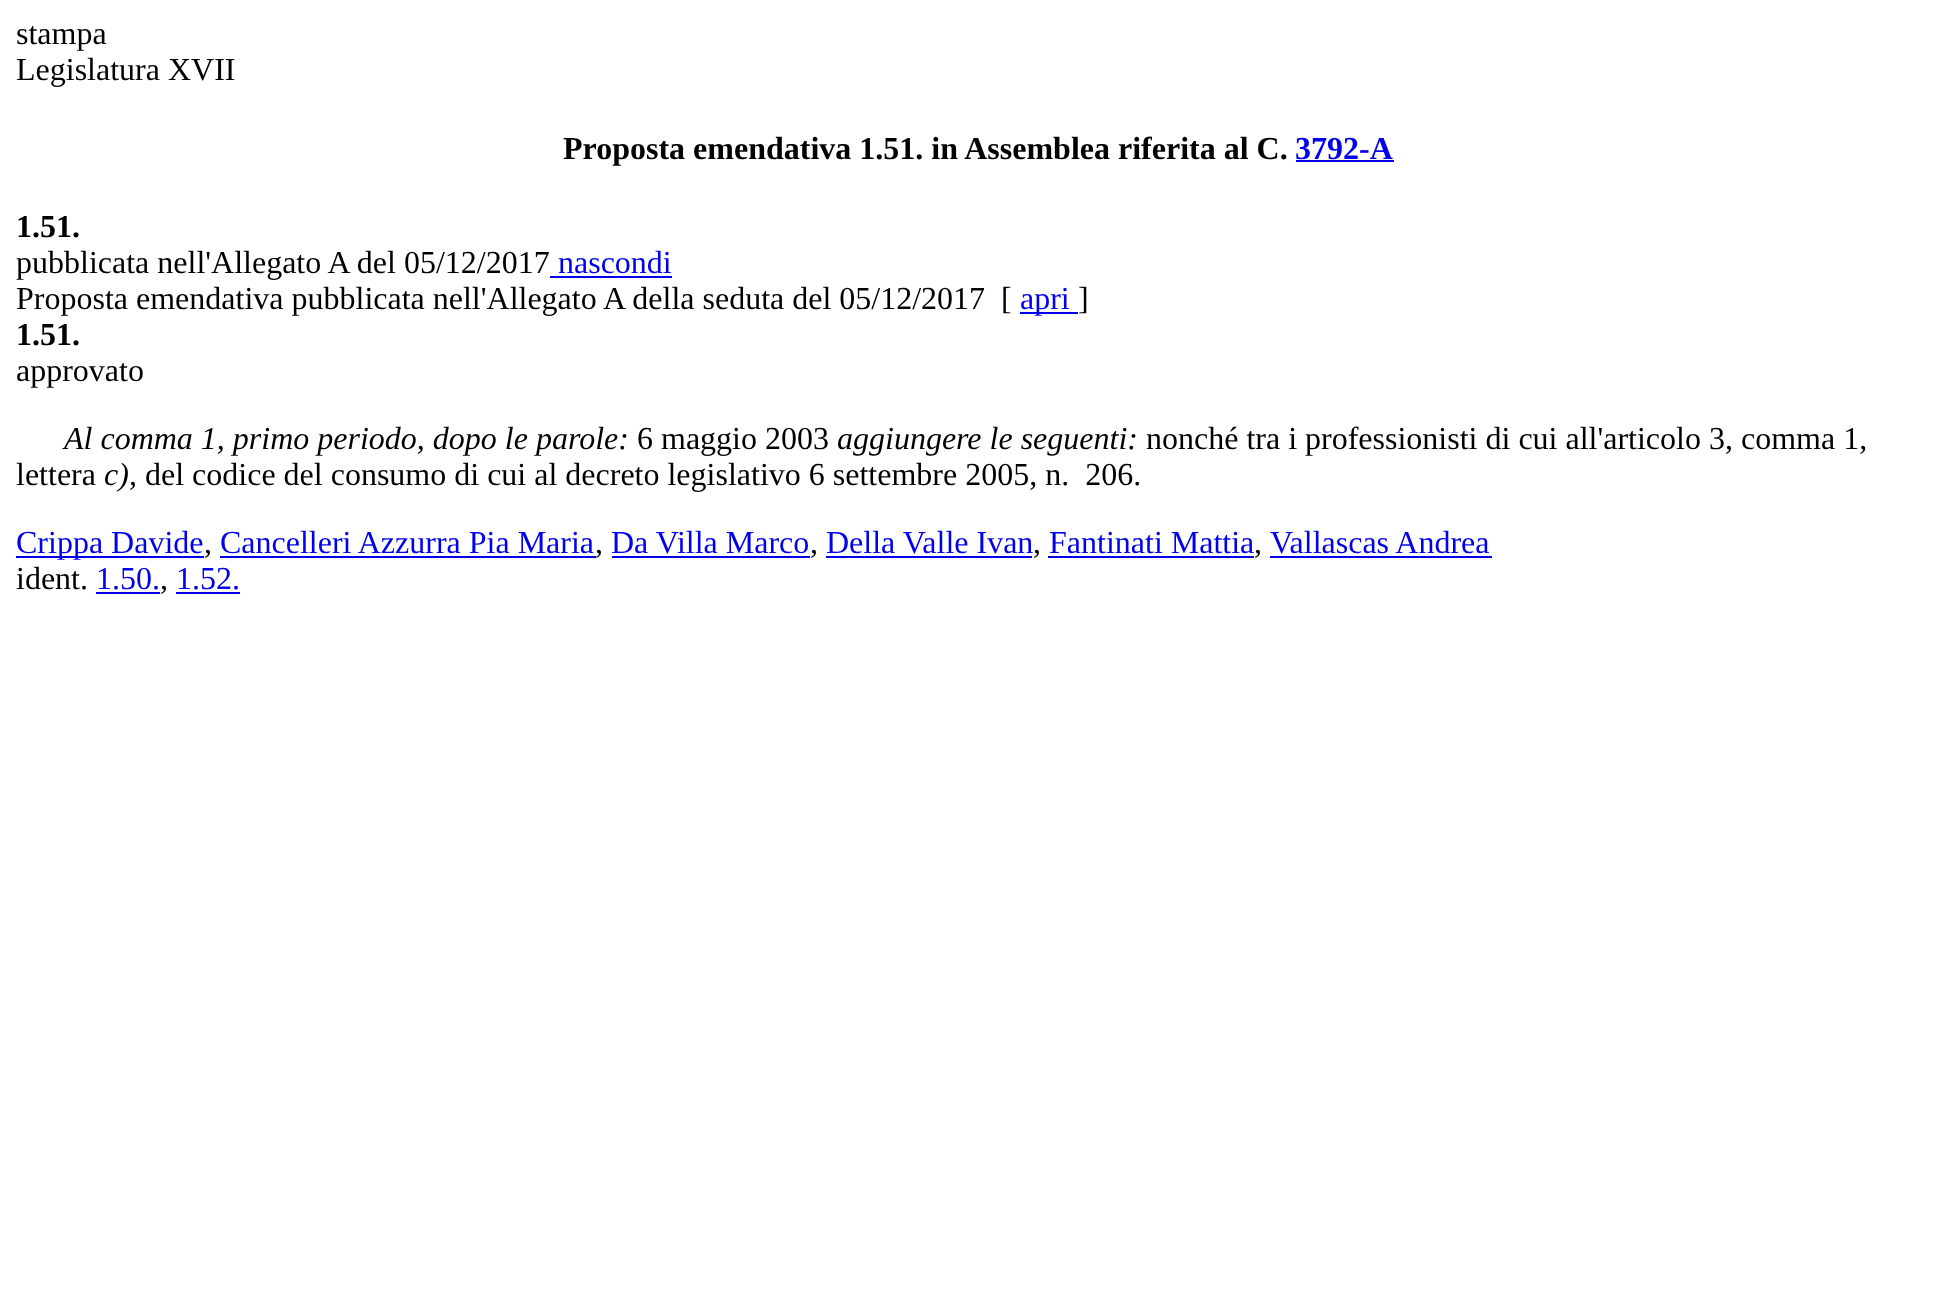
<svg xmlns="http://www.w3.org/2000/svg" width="1956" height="1298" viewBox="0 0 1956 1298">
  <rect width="100%" height="100%" fill="#fff"/>
  <path d="M1296 160h98v2H1296z" fill="#00e"/>
  <path d="M550 276h122v2H550z" fill="#00e"/>
  <path d="M1020 312h58v2H1020z" fill="#00e"/>
  <path d="M16 556h188v2H16z" fill="#00e"/>
  <path d="M220 556h376v2H220z" fill="#00e"/>
  <path d="M612 556h198v2H612z" fill="#00e"/>
  <path d="M826 556h206v2H826z" fill="#00e"/>
  <path d="M1048 556h206v2H1048z" fill="#00e"/>
  <path d="M1270 556h222v2H1270z" fill="#00e"/>
  <path d="M96 592h64v2H96z" fill="#00e"/>
  <path d="M176 592h64v2H176z" fill="#00e"/>
  <g font-family="Liberation Serif" font-size="32" fill="#000">
    <text x="16" y="44">stampa</text>
    <text x="16" y="80">Legislatura XVII</text>
  </g>
  <text x="563" y="159" font-family="Liberation Serif" font-size="32" font-weight="bold" fill="#000">Proposta emendativa 1.51. in Assemblea riferita al C.</text>
  <text x="1295" y="159" font-family="Liberation Serif" font-size="32" font-weight="bold" fill="#00e">3792-A</text>
  <text x="16" y="237" font-family="Liberation Serif" font-size="32" font-weight="bold" fill="#000">1.51.</text>
  <text x="16" y="273" font-family="Liberation Serif" font-size="32" fill="#000">pubblicata nell'Allegato A del 05/12/2017</text>
  <text x="558" y="273" font-family="Liberation Serif" font-size="32" fill="#00e">nascondi</text>
  <g font-family="Liberation Serif" font-size="32" fill="#000">
    <text x="16" y="309">Proposta emendativa pubblicata nell'Allegato A della seduta del 05/12/2017</text>
    <text x="1001" y="309">[</text>
  </g>
  <text x="1020" y="309" font-family="Liberation Serif" font-size="32" fill="#00e">apri</text>
  <text x="1078" y="309" font-family="Liberation Serif" font-size="32" fill="#000">]</text>
  <text x="16" y="345" font-family="Liberation Serif" font-size="32" font-weight="bold" fill="#000">1.51.</text>
  <text x="16" y="381" font-family="Liberation Serif" font-size="32" fill="#000">approvato</text>
  <text x="64" y="449" font-family="Liberation Serif" font-size="32" font-style="italic" fill="#000">Al comma 1, primo periodo, dopo le parole:</text>
  <text x="637" y="449" font-family="Liberation Serif" font-size="32" fill="#000">6 maggio 2003</text>
  <text x="837" y="449" font-family="Liberation Serif" font-size="32" font-style="italic" fill="#000">aggiungere le seguenti:</text>
  <g font-family="Liberation Serif" font-size="32" fill="#000">
    <text x="1146" y="449">nonché tra i professionisti di cui all'articolo 3, comma 1,</text>
    <text x="16" y="485">lettera</text>
  </g>
  <text x="104" y="485" font-family="Liberation Serif" font-size="32" font-style="italic" fill="#000">c)</text>
  <text x="129" y="485" font-family="Liberation Serif" font-size="32" fill="#000">, del codice del consumo di cui al decreto legislativo 6 settembre 2005, n. 206.</text>
  <text x="16" y="553" font-family="Liberation Serif" font-size="32" fill="#00e">Crippa Davide</text>
  <text x="204" y="553" font-family="Liberation Serif" font-size="32" fill="#000">,</text>
  <text x="220" y="553" font-family="Liberation Serif" font-size="32" fill="#00e">Cancelleri Azzurra Pia Maria</text>
  <text x="595" y="553" font-family="Liberation Serif" font-size="32" fill="#000">,</text>
  <text x="611" y="553" font-family="Liberation Serif" font-size="32" fill="#00e">Da Villa Marco</text>
  <text x="810" y="553" font-family="Liberation Serif" font-size="32" fill="#000">,</text>
  <text x="826" y="553" font-family="Liberation Serif" font-size="32" fill="#00e">Della Valle Ivan</text>
  <text x="1033" y="553" font-family="Liberation Serif" font-size="32" fill="#000">,</text>
  <text x="1049" y="553" font-family="Liberation Serif" font-size="32" fill="#00e">Fantinati Mattia</text>
  <text x="1254" y="553" font-family="Liberation Serif" font-size="32" fill="#000">,</text>
  <text x="1270" y="553" font-family="Liberation Serif" font-size="32" fill="#00e">Vallascas Andrea</text>
  <text x="16" y="589" font-family="Liberation Serif" font-size="32" fill="#000">ident.</text>
  <text x="96" y="589" font-family="Liberation Serif" font-size="32" fill="#00e">1.50.</text>
  <text x="160" y="589" font-family="Liberation Serif" font-size="32" fill="#000">,</text>
  <text x="176" y="589" font-family="Liberation Serif" font-size="32" fill="#00e">1.52.</text>
</svg>
